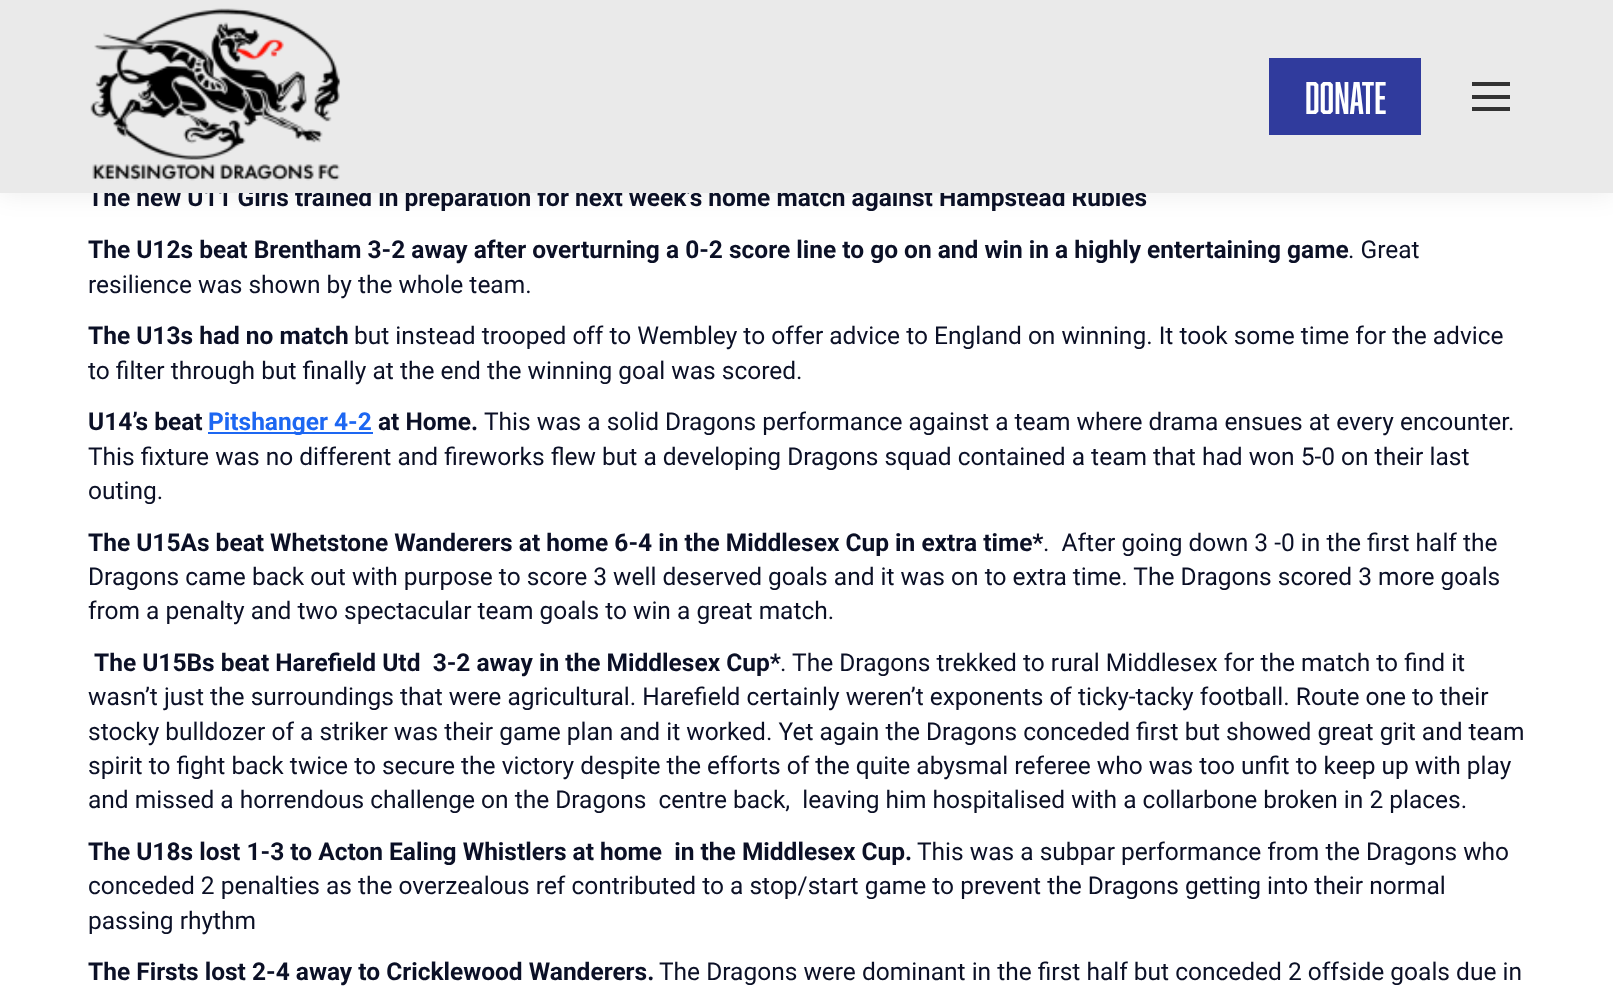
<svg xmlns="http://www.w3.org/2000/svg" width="1613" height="998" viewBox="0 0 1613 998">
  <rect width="100%" height="100%" fill="#fff"/>
  <path d="M-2 -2h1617v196H-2z" fill="#00000012" filter="blur(13px)"/>
  <path d="M208 432h165v2H208z" fill="#1d67f2"/>
  <text x="88" y="206" font-family="Roboto" font-size="24.5" font-weight="bold" fill="#0b1026">The new U11 Girls trained in preparation for next week’s home match against Hampstead Rubies</text>
  <path d="M0 0h1613v193H0z" fill="#eaeaea"/>
  <path d="M1472 107h38v4H1472z" fill="#333"/>
  <path d="M1472 95h38v4H1472z" fill="#333"/>
  <path d="M1472 82h38v4H1472z" fill="#333"/>
  <path d="M1269 58h152v77H1269z" fill="#303b9d"/>
  <text x="1305" y="114" font-family="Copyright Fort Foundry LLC" font-size="42" fill="#fff">DONATE</text>
  <image x="90" y="8" width="251" height="173" href="img/1.png"/>
  <text x="88" y="258" font-family="Roboto" font-size="24.5" font-weight="bold" fill="#0b1026">The U12s beat Brentham 3-2 away after overturning a 0-2 score line to go on and win in a highly entertaining game</text>
  <g font-family="Roboto" font-size="24.5" fill="#0b1026">
    <text x="1348" y="258">. Great</text>
    <text x="88" y="293">resilience was shown by the whole team.</text>
  </g>
  <text x="88" y="344" font-family="Roboto" font-size="24.5" font-weight="bold" fill="#0b1026">The U13s had no match</text>
  <g font-family="Roboto" font-size="24.5" fill="#0b1026">
    <text x="354" y="344">but instead trooped off to Wembley to offer advice to England on winning. It took some time for the advice</text>
    <text x="88" y="379">to filter through but finally at the end the winning goal was scored.</text>
  </g>
  <text x="88" y="430" font-family="Roboto" font-size="24.5" font-weight="bold" fill="#0b1026">U14’s beat</text>
  <text x="208" y="430" font-family="Roboto" font-size="24.5" font-weight="bold" fill="#1d67f2">Pitshanger 4-2</text>
  <text x="378" y="430" font-family="Roboto" font-size="24.5" font-weight="bold" fill="#0b1026">at Home.</text>
  <g font-family="Roboto" font-size="24.5" fill="#0b1026">
    <text x="484" y="430">This was a solid Dragons performance against a team where drama ensues at every encounter.</text>
    <text x="88" y="465">This fixture was no different and fireworks flew but a developing Dragons squad contained a team that had won 5-0 on their last</text>
    <text x="88" y="499">outing.</text>
  </g>
  <text x="88" y="551" font-family="Roboto" font-size="24.5" font-weight="bold" fill="#0b1026">The U15As beat Whetstone Wanderers at home 6-4 in the Middlesex Cup in extra time*</text>
  <g font-family="Roboto" font-size="24.5" fill="#0b1026">
    <text x="1043" y="551" xml:space="preserve">.  After going down 3 -0 in the first half the</text>
    <text x="88" y="585">Dragons came back out with purpose to score 3 well deserved goals and it was on to extra time. The Dragons scored 3 more goals</text>
    <text x="88" y="619">from a penalty and two spectacular team goals to win a great match.</text>
  </g>
  <text x="94" y="671" font-family="Roboto" font-size="24.5" font-weight="bold" fill="#0b1026" xml:space="preserve">The U15Bs beat Harefield Utd  3-2 away in the Middlesex Cup*</text>
  <g font-family="Roboto" font-size="24.5" fill="#0b1026">
    <text x="780" y="671">. The Dragons trekked to rural Middlesex for the match to find it</text>
    <text x="88" y="705">wasn’t just the surroundings that were agricultural. Harefield certainly weren’t exponents of ticky-tacky football. Route one to their</text>
    <text x="88" y="740">stocky bulldozer of a striker was their game plan and it worked. Yet again the Dragons conceded first but showed great grit and team</text>
    <text x="88" y="774">spirit to fight back twice to secure the victory despite the efforts of the quite abysmal referee who was too unfit to keep up with play</text>
    <text x="88" y="808" xml:space="preserve">and missed a horrendous challenge on the Dragons  centre back,  leaving him hospitalised with a collarbone broken in 2 places.</text>
  </g>
  <text x="88" y="860" font-family="Roboto" font-size="24.5" font-weight="bold" fill="#0b1026" xml:space="preserve">The U18s lost 1-3 to Acton Ealing Whistlers at home  in the Middlesex Cup.</text>
  <g font-family="Roboto" font-size="24.5" fill="#0b1026">
    <text x="917" y="860">This was a subpar performance from the Dragons who</text>
    <text x="88" y="894">conceded 2 penalties as the overzealous ref contributed to a stop/start game to prevent the Dragons getting into their normal</text>
    <text x="88" y="929">passing rhythm</text>
  </g>
  <text x="88" y="980" font-family="Roboto" font-size="24.5" font-weight="bold" fill="#0b1026">The Firsts lost 2-4 away to Cricklewood Wanderers.</text>
  <text x="659" y="980" font-family="Roboto" font-size="24.5" fill="#0b1026">The Dragons were dominant in the first half but conceded 2 offside goals due in</text>
</svg>
